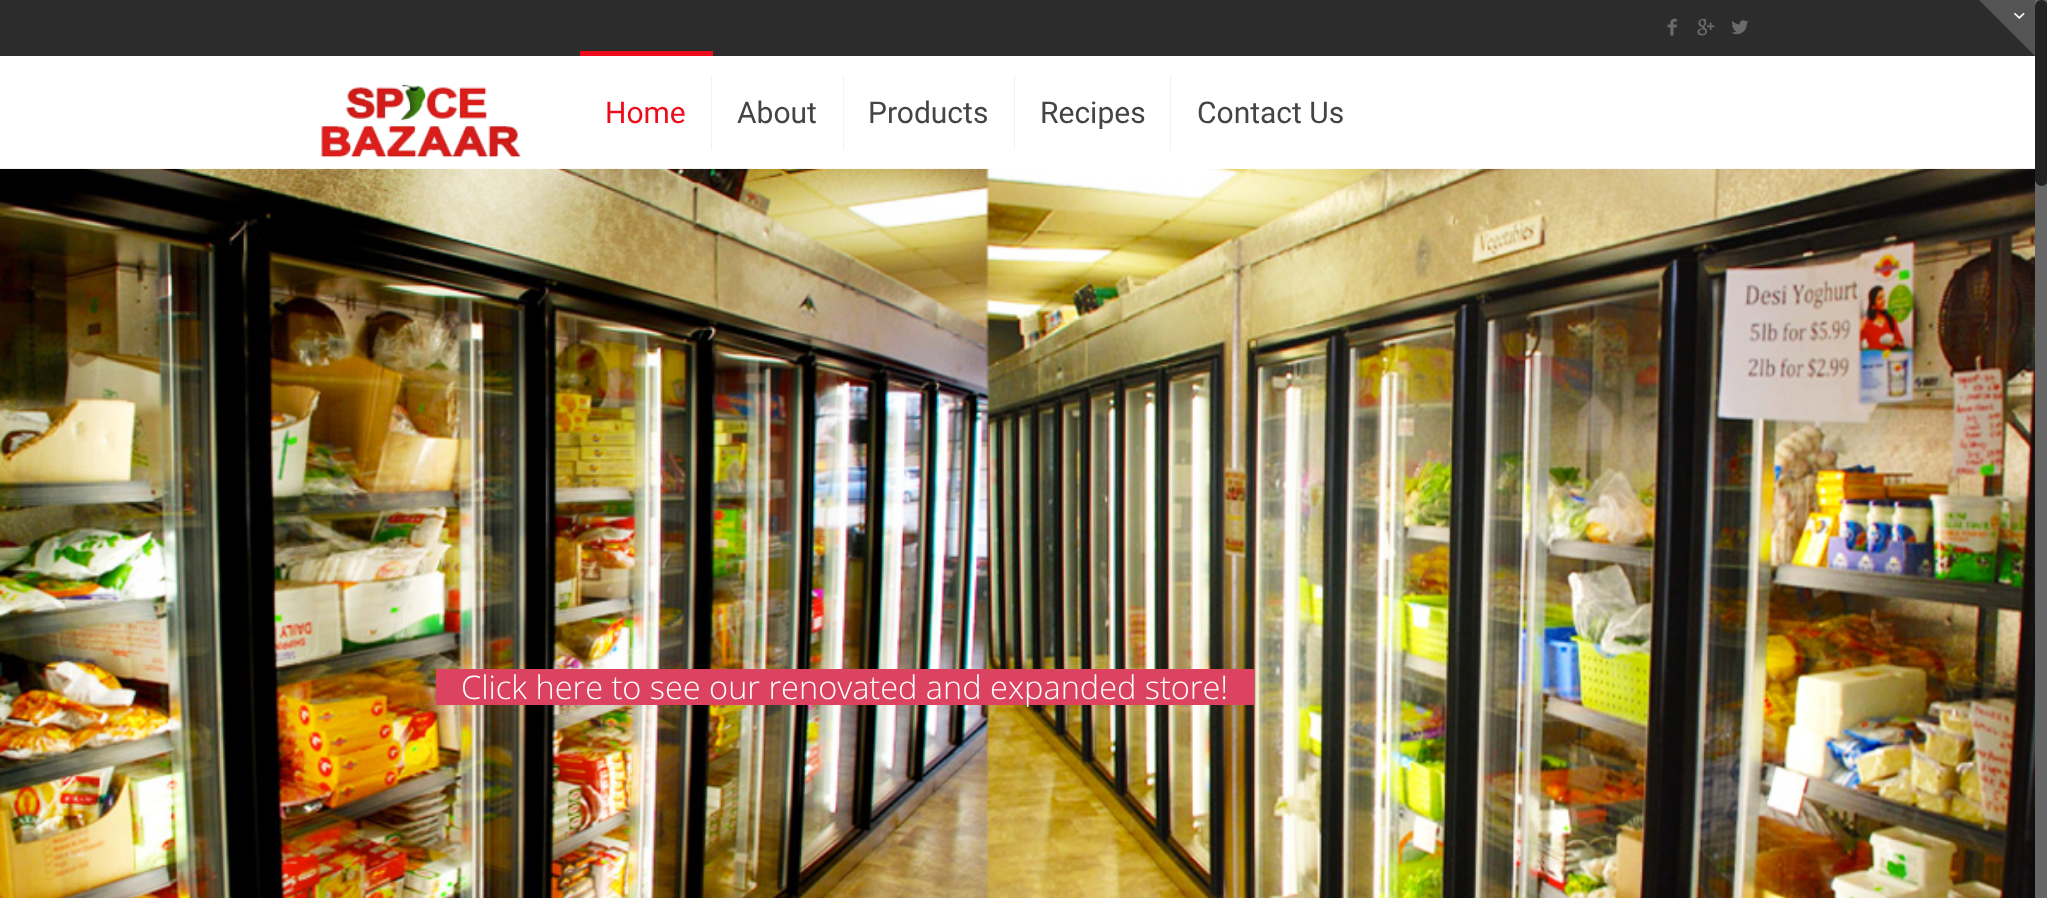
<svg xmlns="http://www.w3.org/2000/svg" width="2047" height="898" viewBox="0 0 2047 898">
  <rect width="100%" height="100%" fill="#2c2c2c"/>
  <image x="1667" y="18" width="10" height="18" href="img/1.png"/>
  <image x="1697" y="19" width="18" height="17" href="img/2.png"/>
  <image x="1731" y="20" width="18" height="15" href="img/3.png"/>
  <path d="M0 56h2035v113H0z" fill="#fff"/>
  <image x="321" y="84" width="201" height="74" href="img/4.png"/>
  <path d="M580 51h133v5H580z" fill="#ed0c1c"/>
  <path d="M711 75h1v75H711z" fill="#f2f2f2"/>
  <path d="M843 75h1v75H843z" fill="#f2f2f2"/>
  <path d="M1014 75h1v75H1014z" fill="#f2f2f2"/>
  <path d="M1170 75h1v75H1170z" fill="#f2f2f2"/>
  <image x="0" y="168" width="2035" height="730" href="img/5.png"/>
  <path d="M436 669h818v36H436z" fill="#db4360"/>
  <path d="M2035 0V56L1979 0Z" fill="#545454"/>
  <image x="2014" y="12" width="11" height="7" href="img/6.png"/>
  <path d="M2035 0h12v898H2035z" fill="#666"/>
  <rect x="2035" width="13" height="186" rx="6.5" fill="#222"/>
  <text x="605" y="123" font-family="Roboto" font-size="30" fill="#ed0c1c">Home</text>
  <g font-family="Roboto" font-size="30" fill="#444">
    <text x="737" y="123">About</text>
    <text x="868" y="123">Products</text>
    <text x="1040" y="123">Recipes</text>
    <text x="1197" y="123">Contact Us</text>
  </g>
  <text x="461" y="699" font-family="Open Sans" font-size="32.5" font-weight="300" fill="#fff">Click here to see our renovated and expanded store!</text>
</svg>
